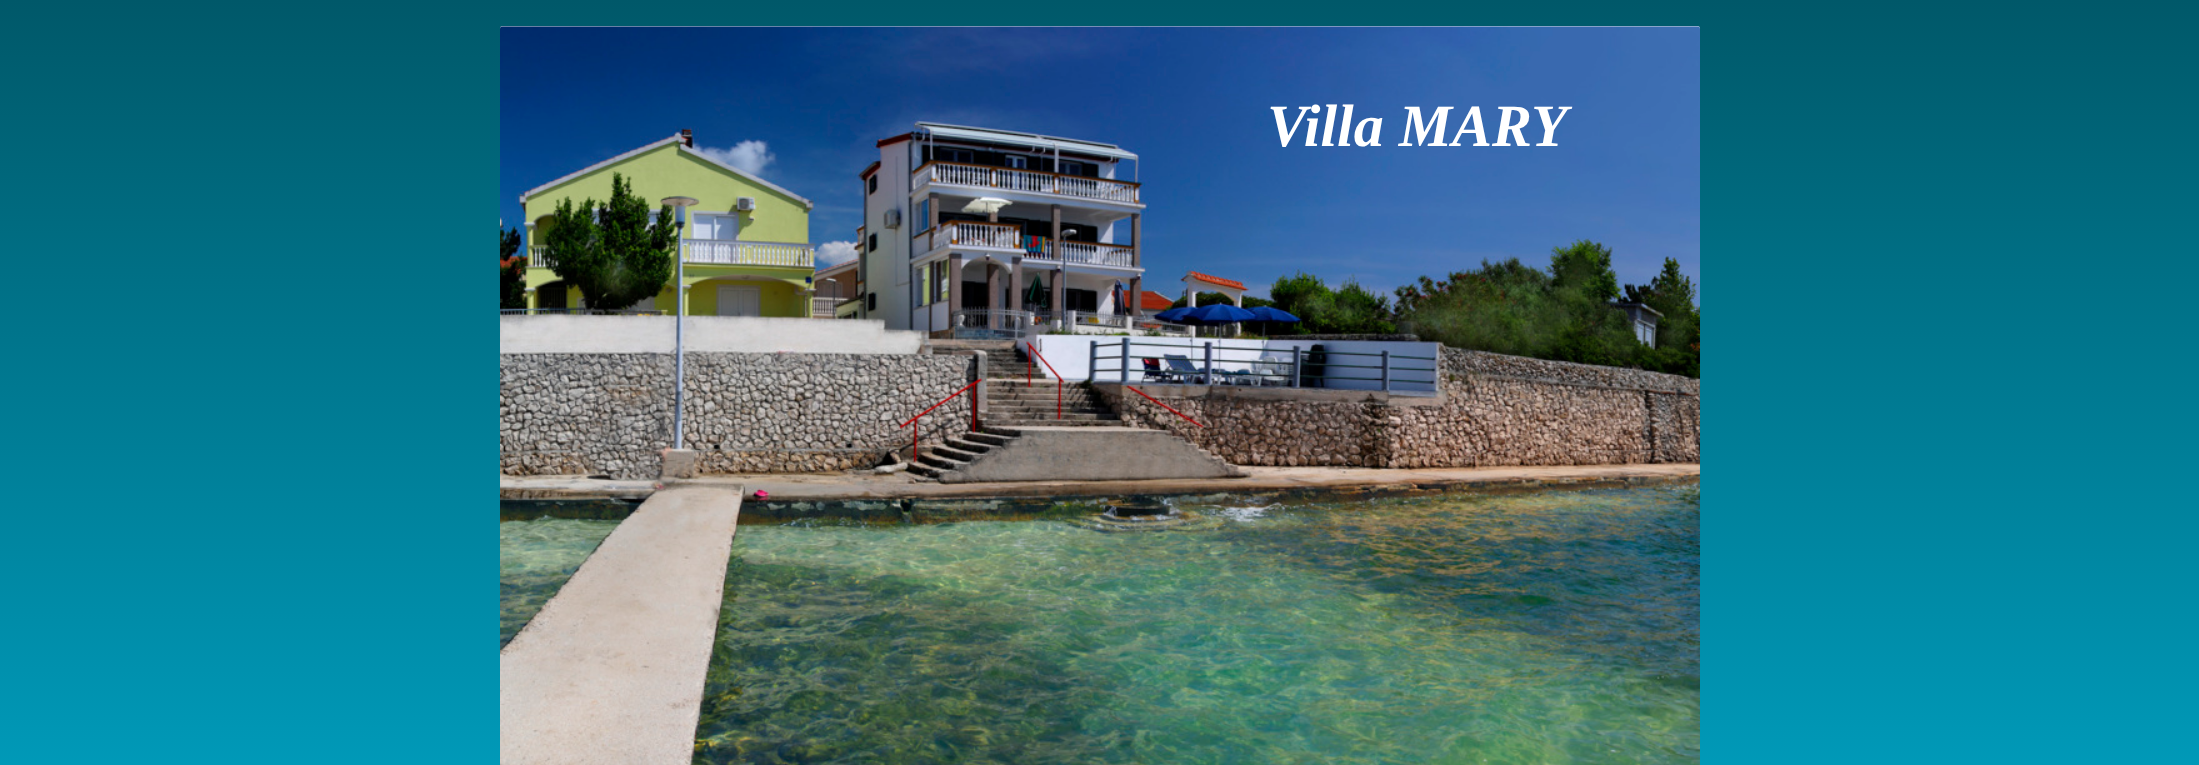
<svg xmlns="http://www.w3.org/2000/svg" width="2199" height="765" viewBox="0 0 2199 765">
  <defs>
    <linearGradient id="g1" gradientUnits="userSpaceOnUse" x1="0" y1="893" x2="0" y2="0"><stop offset="0" stop-color="#00a4c5"/><stop offset="1" stop-color="#005869"/></linearGradient>
  </defs>
  <rect width="100%" height="100%" fill="#fff"/>
  <path d="M0 0h2199v765H0z" fill="url(#g1)"/>
  <image x="500" y="26" width="1200" height="3" href="img/1.png"/>
  <rect x="500" y="26" width="1200" height="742" rx="2.5" fill="#eee"/>
  <image x="500" y="26" width="1200" height="739" href="img/2.png"/>
  <text x="1267" y="146" font-family="Liberation Serif" font-size="60" font-weight="bold" font-style="italic" fill="#fff">Villa MARY</text>
</svg>
